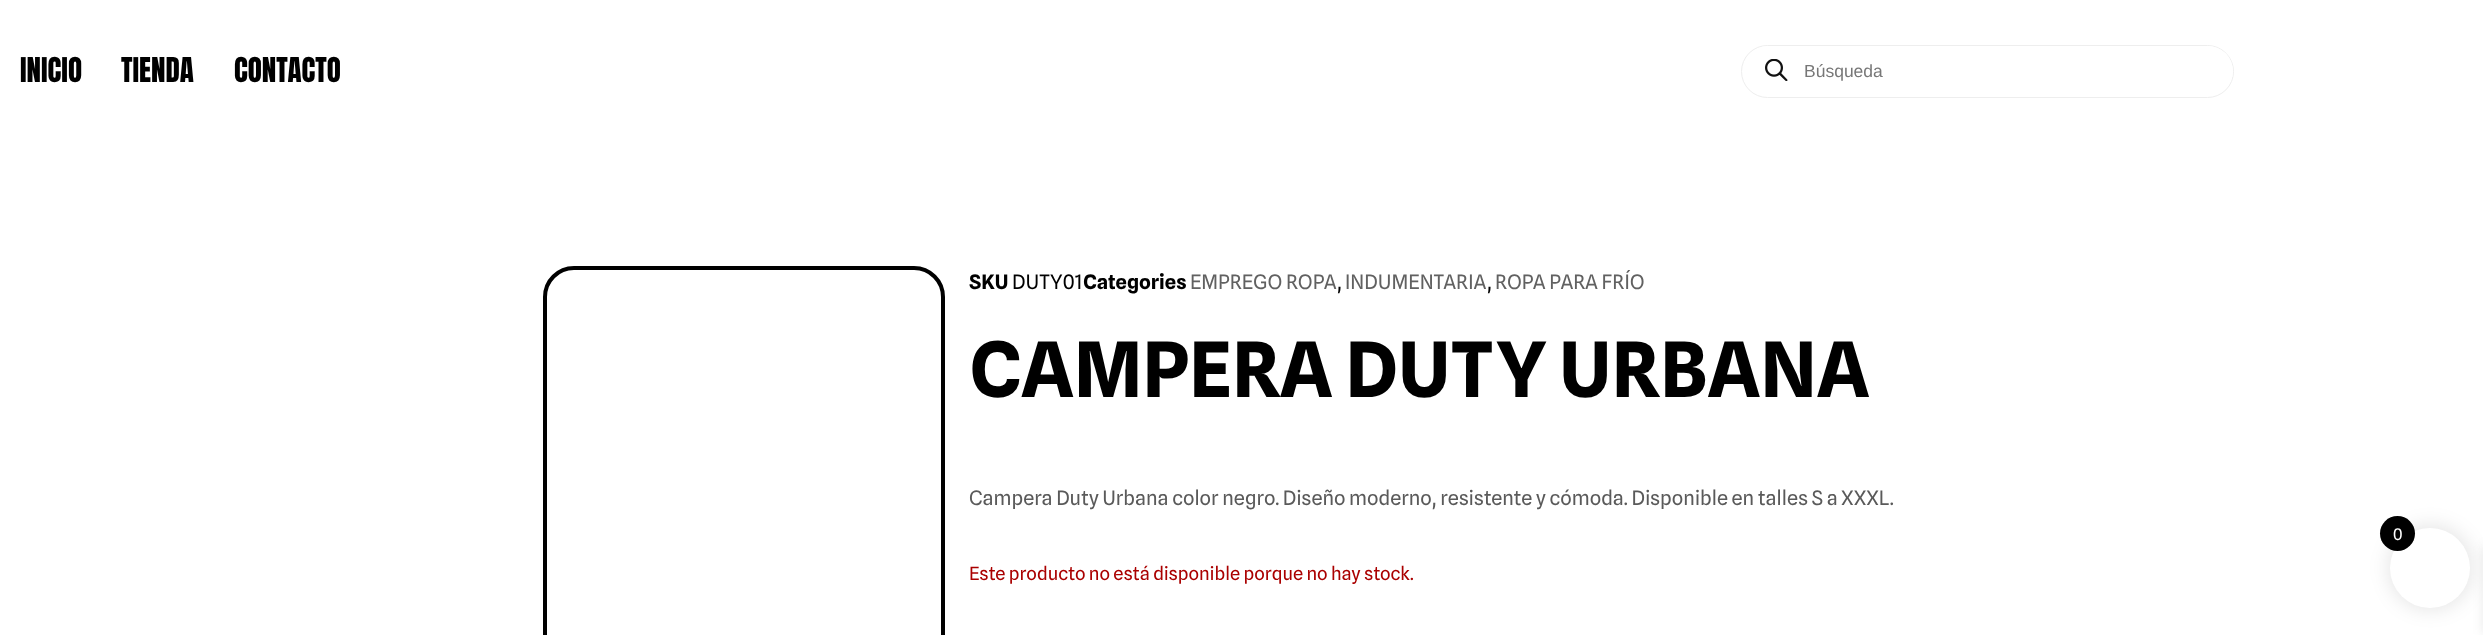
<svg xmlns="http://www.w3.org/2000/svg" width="2483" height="635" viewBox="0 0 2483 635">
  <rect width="100%" height="100%" fill="#fff"/>
  <rect x="1741.5" y="45.5" width="492" height="52" rx="26" fill="none" stroke="#eee"/>
  <rect x="1743" y="46" width="490" height="50" rx="25" fill="#fff"/>
  <image x="1765" y="59" width="23" height="22" href="img/1.png"/>
  <rect x="545" y="268" width="398" height="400" rx="29" fill="none" stroke="#000" stroke-width="4"/>
  <rect x="2388" y="525" width="85" height="85" rx="42.5" fill="#0000001a" filter="blur(9.5px)"/>
  <path d="M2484 546h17v88H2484z" fill="#0000001a" filter="blur(6px)"/>
  <circle cx="2430" cy="568" r="40" fill="#fff"/>
  <circle cx="2397.5" cy="533.5" r="17.5" fill="#000"/>
  <g font-family="Anton" font-size="29" fill="#000">
    <text x="20" y="82">INICIO</text>
    <text x="121" y="82">TIENDA</text>
    <text x="234" y="82">CONTACTO</text>
  </g>
  <text x="1804" y="77" font-family="Liberation Sans" font-size="17.5" fill="#777">Búsqueda</text>
  <text x="969" y="289" font-family="Spline Sans" font-size="20" font-weight="bold" fill="#000">SKU</text>
  <text x="1012" y="289" font-family="Spline Sans" font-size="20" fill="#000">DUTY01</text>
  <text x="1083" y="289" font-family="Spline Sans" font-size="20" font-weight="bold" fill="#000">Categories</text>
  <text x="1190" y="289" font-family="Spline Sans" font-size="20" fill="#616161">EMPREGO ROPA</text>
  <text x="1337" y="289" font-family="Spline Sans" font-size="20" fill="#000">,</text>
  <text x="1345" y="289" font-family="Spline Sans" font-size="20" fill="#616161">INDUMENTARIA</text>
  <text x="1487" y="289" font-family="Spline Sans" font-size="20" fill="#000">,</text>
  <text x="1495" y="289" font-family="Spline Sans" font-size="20" fill="#616161">ROPA PARA FRÍO</text>
  <text x="969" y="397" font-family="Spline Sans" font-size="76.25" font-weight="bold" fill="#000">CAMPERA DUTY URBANA</text>
  <text x="969" y="505" font-family="Spline Sans" font-size="20" fill="#5a5a5a">Campera Duty Urbana color negro. Diseño moderno, resistente y cómoda. Disponible en talles S a XXXL.</text>
  <text x="969" y="580" font-family="Spline Sans" font-size="18.4" fill="#a00">Este producto no está disponible porque no hay stock.</text>
  <text x="2393" y="540" font-family="Spline Sans" font-size="16" fill="#fff">0</text>
</svg>
